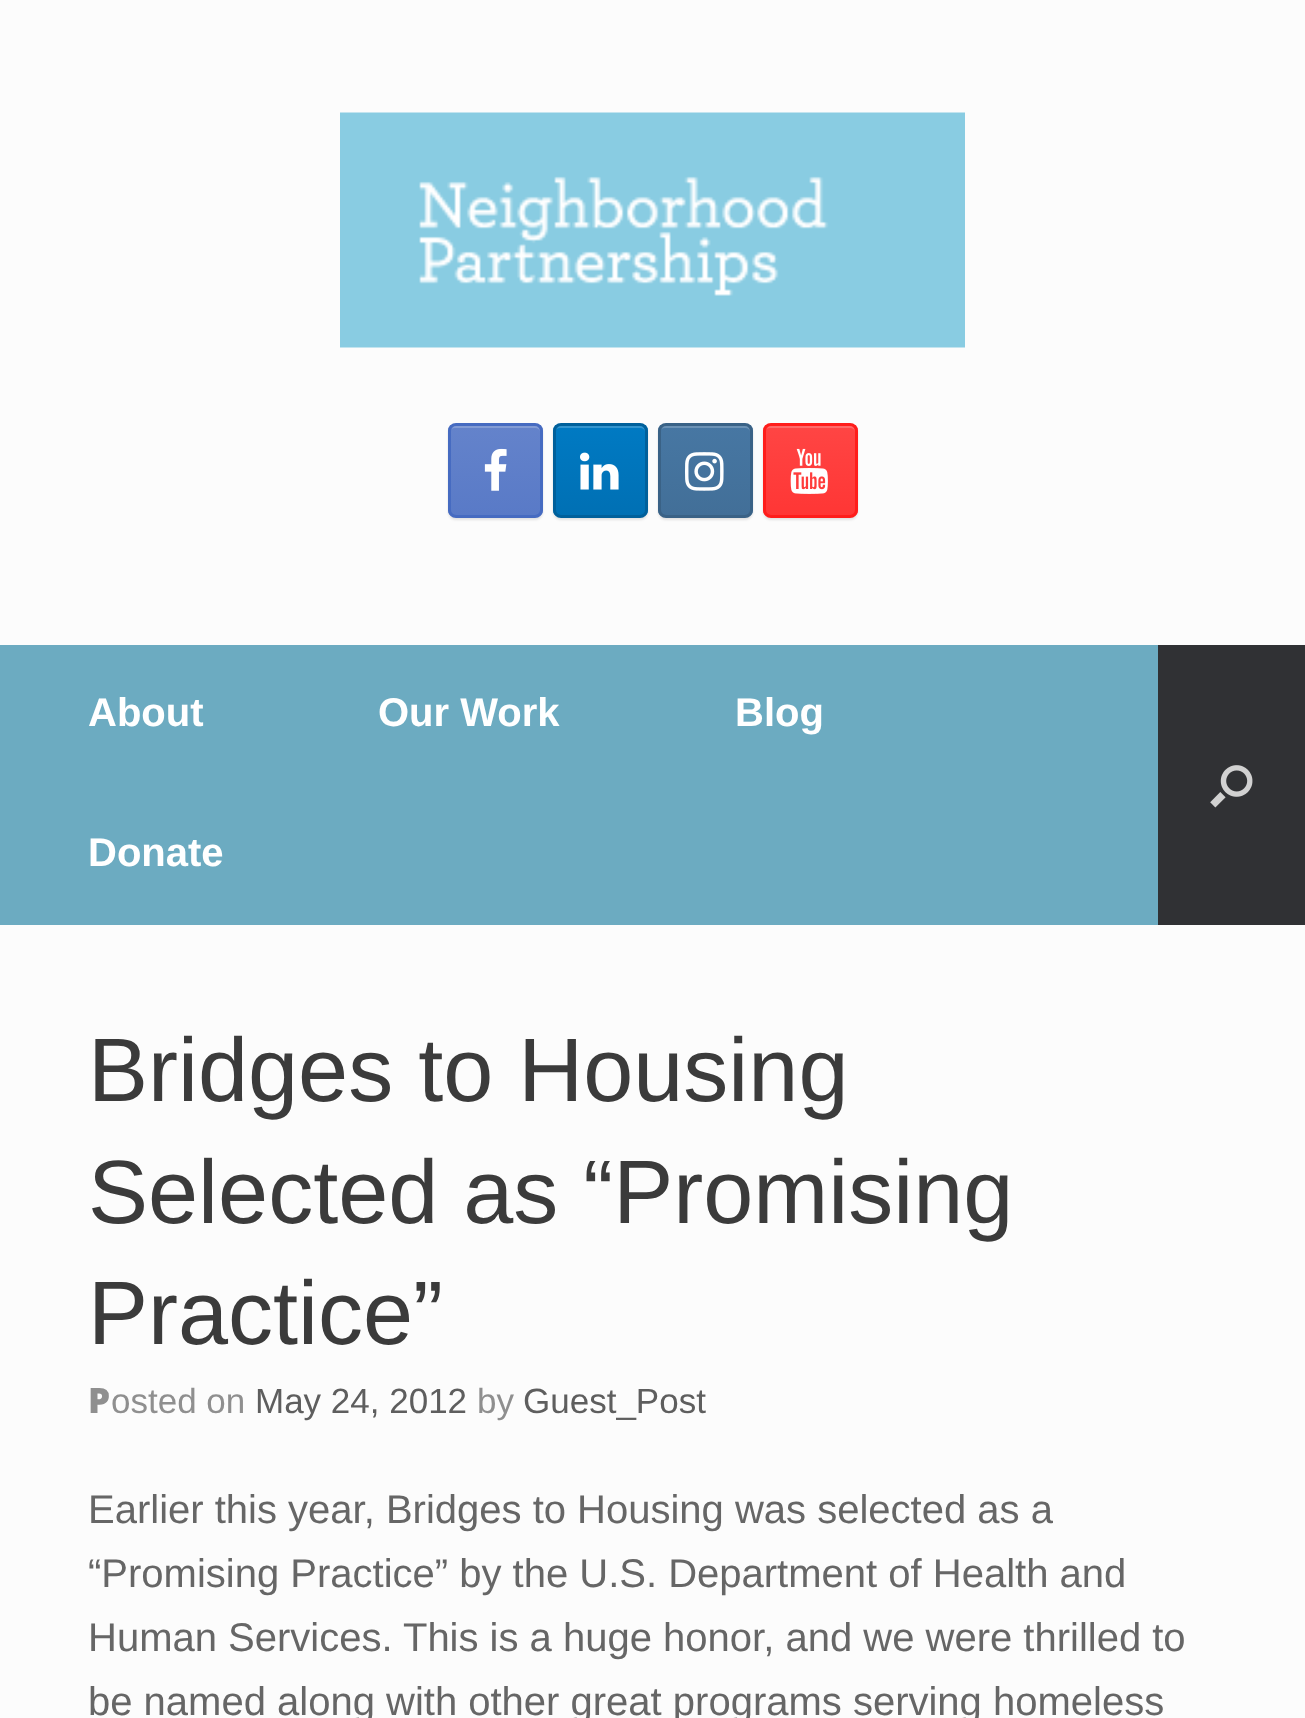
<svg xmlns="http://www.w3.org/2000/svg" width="1305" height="1718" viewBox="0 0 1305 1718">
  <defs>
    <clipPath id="clip1"><rect x="448" y="423" width="95" height="95" rx="8"/></clipPath>
    <linearGradient id="g1" gradientUnits="userSpaceOnUse" x1="450" y1="515" x2="450" y2="425"><stop offset="0" stop-color="#597ac7"/><stop offset="1" stop-color="#6483cb"/></linearGradient>
    <clipPath id="clip2"><rect x="553" y="423" width="95" height="95" rx="8"/></clipPath>
    <linearGradient id="g2" gradientUnits="userSpaceOnUse" x1="555" y1="515" x2="555" y2="425"><stop offset="0" stop-color="#0070b4"/><stop offset="1" stop-color="#007ac3"/></linearGradient>
    <clipPath id="clip3"><rect x="658" y="423" width="95" height="95" rx="8"/></clipPath>
    <linearGradient id="g3" gradientUnits="userSpaceOnUse" x1="660" y1="515" x2="660" y2="425"><stop offset="0" stop-color="#426f98"/><stop offset="1" stop-color="#4777a3"/></linearGradient>
    <clipPath id="clip4"><rect x="763" y="423" width="95" height="95" rx="8"/></clipPath>
    <linearGradient id="g4" gradientUnits="userSpaceOnUse" x1="765" y1="515" x2="765" y2="425"><stop offset="0" stop-color="#ff3635"/><stop offset="1" stop-color="#ff4544"/></linearGradient>
  </defs>
  <rect width="100%" height="100%" fill="#fcfcfc"/>
  <image x="340" y="112" width="625" height="236" href="img/1.png"/>
  <rect x="448" y="425" width="95" height="95" rx="8" fill="#0000001a" filter="blur(1px)"/>
  <g clip-path="url(#clip1)">
    <path d="M448 425h95v90H448z" fill="url(#g1)"/>
  </g>
  <path d="M455 428H535C538 428 540 430 540 432C540 422 530 425 522 425H468C460 425 450 422 450 432C450 430 452 428 455 428Z" fill="#839cd5"/>
  <rect x="449.5" y="424.5" width="92" height="92" rx="6.5" fill="none" stroke="#466bc1" stroke-width="3"/>
  <image x="484" y="448" width="23" height="43" href="img/2.png"/>
  <rect x="553" y="425" width="95" height="95" rx="8" fill="#0000001a" filter="blur(1px)"/>
  <g clip-path="url(#clip2)">
    <path d="M553 425h95v90H553z" fill="url(#g2)"/>
  </g>
  <path d="M560 428H640C643 428 645 430 645 432C645 422 635 425 627 425H573C565 425 555 422 555 432C555 430 557 428 560 428Z" fill="#3395cf"/>
  <rect x="554.5" y="424.5" width="92" height="92" rx="6.5" fill="none" stroke="#00609b" stroke-width="3"/>
  <image x="580" y="452" width="39" height="38" href="img/3.png"/>
  <rect x="658" y="425" width="95" height="95" rx="8" fill="#0000001a" filter="blur(1px)"/>
  <g clip-path="url(#clip3)">
    <path d="M658 425h95v90H658z" fill="url(#g3)"/>
  </g>
  <path d="M665 428H745C748 428 750 430 750 432C750 422 740 425 732 425H678C670 425 660 422 660 432C660 430 662 428 665 428Z" fill="#6c92b5"/>
  <rect x="659.5" y="424.5" width="92" height="92" rx="6.5" fill="none" stroke="#3a6286" stroke-width="3"/>
  <image x="685" y="452" width="39" height="39" href="img/4.png"/>
  <rect x="763" y="425" width="95" height="95" rx="8" fill="#0000001a" filter="blur(1px)"/>
  <g clip-path="url(#clip4)">
    <path d="M763 425h95v90H763z" fill="url(#g4)"/>
  </g>
  <path d="M770 428H850C853 428 855 430 855 432C855 422 845 425 837 425H783C775 425 765 422 765 432C765 430 767 428 770 428Z" fill="#ff6a69"/>
  <rect x="764.5" y="424.5" width="92" height="92" rx="6.5" fill="none" stroke="#ff1d1b" stroke-width="3"/>
  <image x="790" y="448" width="38" height="46" href="img/5.png"/>
  <path d="M0 645h1158v280H0z" fill="#6cabc1"/>
  <path d="M1158 645h147v280H1158z" fill="#303134"/>
  <image x="1210" y="765" width="43" height="43" href="img/6.png"/>
  <g font-family="Liberation Sans" font-size="40" font-weight="bold" fill="#fff">
    <text x="88" y="726">About</text>
    <text x="378" y="726">Our Work</text>
    <text x="735" y="726">Blog</text>
    <text x="88" y="866">Donate</text>
  </g>
  <g font-family="Liberation Sans" font-size="90" fill="#3b3b3b">
    <text x="88" y="1101">Bridges to Housing</text>
    <text x="88" y="1223">Selected as “Promising</text>
    <text x="88" y="1344">Practice”</text>
  </g>
  <text x="88" y="1413" font-family="Noto Sans" font-size="35" font-weight="900" fill="#8f8f8f">P</text>
  <text x="111" y="1413" font-family="Liberation Sans" font-size="35" fill="#8f8f8f">osted on</text>
  <text x="255" y="1413" font-family="Liberation Sans" font-size="35" fill="#5e5e5e">May 24, 2012</text>
  <text x="477" y="1413" font-family="Liberation Sans" font-size="35" fill="#8f8f8f">by</text>
  <text x="523" y="1413" font-family="Liberation Sans" font-size="35" fill="#5e5e5e">Guest_Post</text>
  <g font-family="Liberation Sans" font-size="40" fill="#666">
    <text x="88" y="1523">Earlier this year, Bridges to Housing was selected as a</text>
    <text x="88" y="1587">“Promising Practice” by the U.S. Department of Health and</text>
    <text x="88" y="1651">Human Services. This is a huge honor, and we were thrilled to</text>
    <text x="88" y="1715">be named along with other great programs serving homeless</text>
  </g>
</svg>
